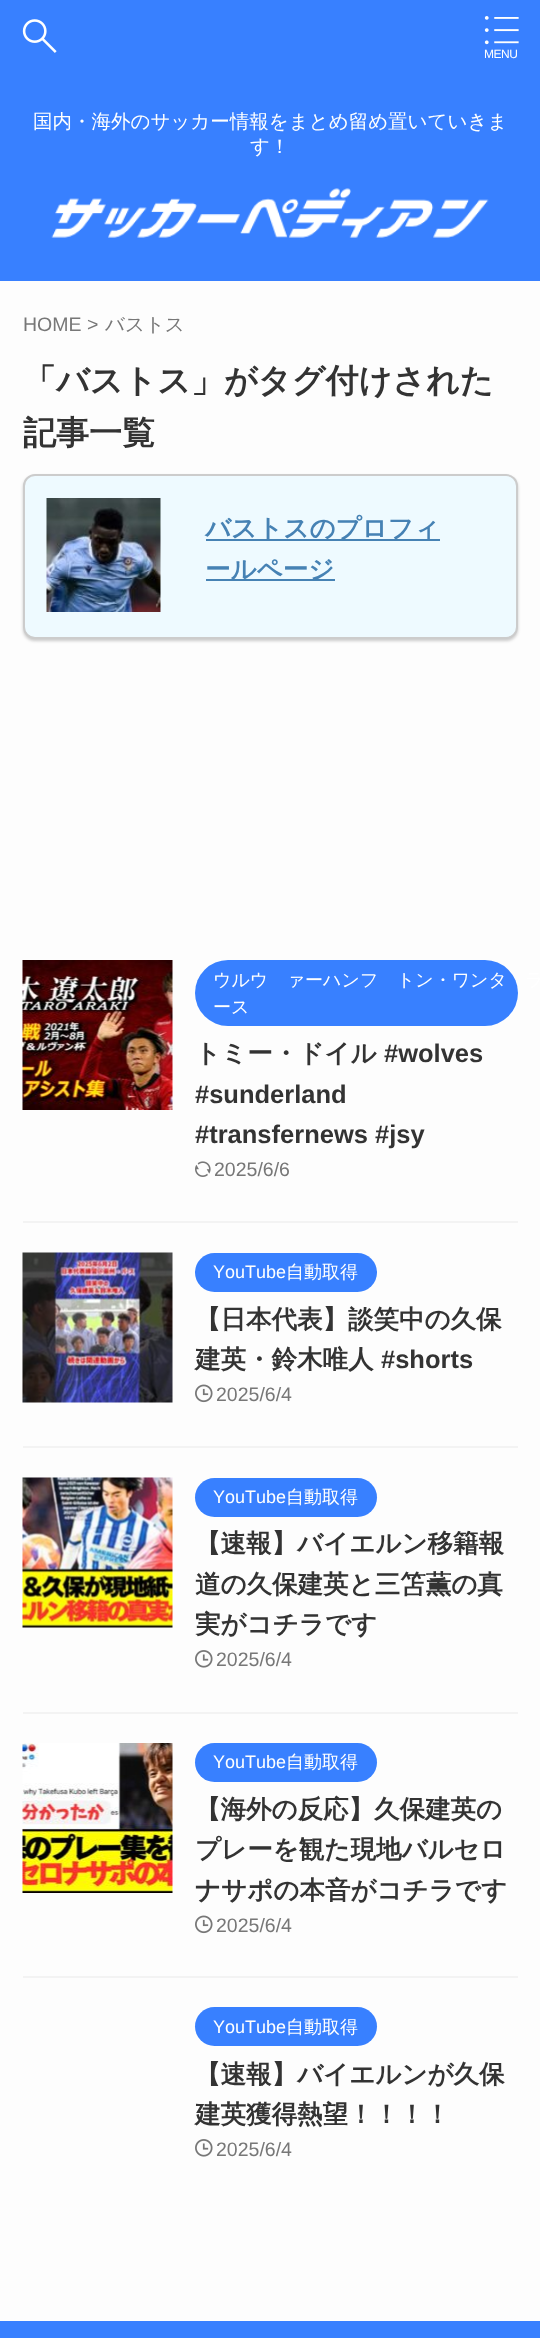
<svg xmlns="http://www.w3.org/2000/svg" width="540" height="2338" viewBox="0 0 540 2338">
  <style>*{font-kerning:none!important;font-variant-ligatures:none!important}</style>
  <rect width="100%" height="100%" fill="#fdfdfd"/>
  <path d="M0 0h540v281H0z" fill="#3880ff"/>
  <image x="22" y="19" width="35" height="34" href="img/1.png"/>
  <image x="484" y="16" width="35" height="29" href="img/2.png"/>
  <image x="51" y="188" width="438" height="50" href="img/3.png"/>
  <rect x="23" y="476" width="495" height="165" rx="12" fill="#00000033" filter="blur(1.5px)"/>
  <rect x="24" y="475" width="493" height="163" rx="11" fill="#eefaff" stroke="#ccc" stroke-width="2"/>
  <image x="46" y="498" width="115" height="114" href="img/4.png"/>
  <path d="M206 539h234v2H206z" fill="#4682b4"/>
  <path d="M206 579h129v2H206z" fill="#4682b4"/>
  <path d="M23 1221h495v2H23z" fill="#f3f3f3"/>
  <image x="22" y="960" width="151" height="150" href="img/5.png"/>
  <rect x="195" y="960" width="323" height="66" rx="33" fill="#3880ff"/>
  <image x="195" y="1161" width="16" height="16" href="img/6.png"/>
  <path d="M23 1446h495v2H23z" fill="#f3f3f3"/>
  <image x="22" y="1252" width="151" height="151" href="img/7.png"/>
  <rect x="195" y="1253" width="182" height="39" rx="19.5" fill="#3880ff"/>
  <image x="195" y="1384" width="18" height="19" href="img/8.png"/>
  <path d="M23 1712h495v2H23z" fill="#f3f3f3"/>
  <image x="22" y="1477" width="151" height="151" href="img/9.png"/>
  <rect x="195" y="1478" width="182" height="39" rx="19.5" fill="#3880ff"/>
  <image x="195" y="1650" width="18" height="18" href="img/10.png"/>
  <path d="M23 1976h495v2H23z" fill="#f3f3f3"/>
  <image x="22" y="1743" width="151" height="150" href="img/11.png"/>
  <rect x="195" y="1743" width="182" height="39" rx="19.5" fill="#3880ff"/>
  <image x="195" y="1915" width="18" height="19" href="img/8.png"/>
  <rect x="195" y="2007" width="182" height="39" rx="19.5" fill="#3880ff"/>
  <image x="195" y="2139" width="18" height="18" href="img/10.png"/>
  <path d="M0 2321h540v17H0z" fill="#3880ff"/>
  <text x="484" y="58" font-family="Liberation Sans" font-size="12" letter-spacing="-0.5" fill="#fff">MENU</text>
  <g font-family="WenQuanYi Zen Hei" font-size="19.5" font-weight="500" fill="#fff">
    <text x="33" y="128">国内・海外のサッカー情報をまとめ留め置いていきま</text>
    <text x="250" y="153">す！</text>
  </g>
  <text x="23" y="331" font-family="Liberation Sans" font-size="19.5" fill="#777">HOME &gt;</text>
  <text x="105" y="331" font-family="WenQuanYi Zen Hei" font-size="19.5" font-weight="500" fill="#777">バストス</text>
  <g font-family="WenQuanYi Zen Hei" font-size="33" font-weight="bold" fill="#333">
    <text x="23" y="392">「バストス」がタグ付けされた</text>
    <text x="23" y="444">記事一覧</text>
  </g>
  <g font-family="WenQuanYi Zen Hei" font-size="25.5" font-weight="bold" fill="#4682b4">
    <text x="205" y="537">バストスのプロフィ</text>
    <text x="205" y="578">ールページ</text>
  </g>
  <g font-family="WenQuanYi Zen Hei" font-size="18" font-weight="500" fill="#fff">
    <text x="213" y="986">ウルヴァーハンプトン・ワンダラ</text>
    <text x="213" y="1013">ーズ</text>
  </g>
  <text x="195" y="1062" font-family="WenQuanYi Zen Hei" font-size="25.5" font-weight="bold" fill="#333">トミー・ドイル</text>
  <g font-family="Liberation Sans" font-size="25.5" font-weight="bold" fill="#333">
    <text x="384" y="1062">#wolves</text>
    <text x="195" y="1103">#sunderland</text>
    <text x="195" y="1143">#transfernews #jsy</text>
  </g>
  <text x="214" y="1176" font-family="Liberation Sans" font-size="19.5" fill="#777">2025/6/6</text>
  <text x="213" y="1278" font-family="Liberation Sans" font-size="18" fill="#fff">YouTube</text>
  <text x="286" y="1278" font-family="WenQuanYi Zen Hei" font-size="18" font-weight="500" fill="#fff">自動取得</text>
  <g font-family="WenQuanYi Zen Hei" font-size="25.5" font-weight="bold" fill="#333">
    <text x="195" y="1328">【日本代表】談笑中の久保</text>
    <text x="195" y="1368">建英・鈴木唯人</text>
  </g>
  <text x="381" y="1368" font-family="Liberation Sans" font-size="25.5" font-weight="bold" fill="#333">#shorts</text>
  <text x="216" y="1401" font-family="Liberation Sans" font-size="19.5" fill="#777">2025/6/4</text>
  <text x="213" y="1503" font-family="Liberation Sans" font-size="18" fill="#fff">YouTube</text>
  <text x="286" y="1503" font-family="WenQuanYi Zen Hei" font-size="18" font-weight="500" fill="#fff">自動取得</text>
  <g font-family="WenQuanYi Zen Hei" font-size="25.5" font-weight="bold" fill="#333">
    <text x="195" y="1552">【速報】バイエルン移籍報</text>
    <text x="195" y="1593">道の久保建英と三笘薫の真</text>
    <text x="195" y="1633">実がコチラです</text>
  </g>
  <text x="216" y="1666" font-family="Liberation Sans" font-size="19.5" fill="#777">2025/6/4</text>
  <text x="213" y="1768" font-family="Liberation Sans" font-size="18" fill="#fff">YouTube</text>
  <text x="286" y="1768" font-family="WenQuanYi Zen Hei" font-size="18" font-weight="500" fill="#fff">自動取得</text>
  <g font-family="WenQuanYi Zen Hei" font-size="25.5" font-weight="bold" fill="#333">
    <text x="195" y="1818">【海外の反応】久保建英の</text>
    <text x="195" y="1858">プレーを観た現地バルセロ</text>
    <text x="195" y="1899">ナサポの本音がコチラです</text>
  </g>
  <text x="216" y="1932" font-family="Liberation Sans" font-size="19.5" fill="#777">2025/6/4</text>
  <text x="213" y="2033" font-family="Liberation Sans" font-size="18" fill="#fff">YouTube</text>
  <text x="286" y="2033" font-family="WenQuanYi Zen Hei" font-size="18" font-weight="500" fill="#fff">自動取得</text>
  <g font-family="WenQuanYi Zen Hei" font-size="25.5" font-weight="bold" fill="#333">
    <text x="195" y="2083">【速報】バイエルンが久保</text>
    <text x="195" y="2123">建英獲得熱望！！！！</text>
  </g>
  <text x="216" y="2156" font-family="Liberation Sans" font-size="19.5" fill="#777">2025/6/4</text>
</svg>
